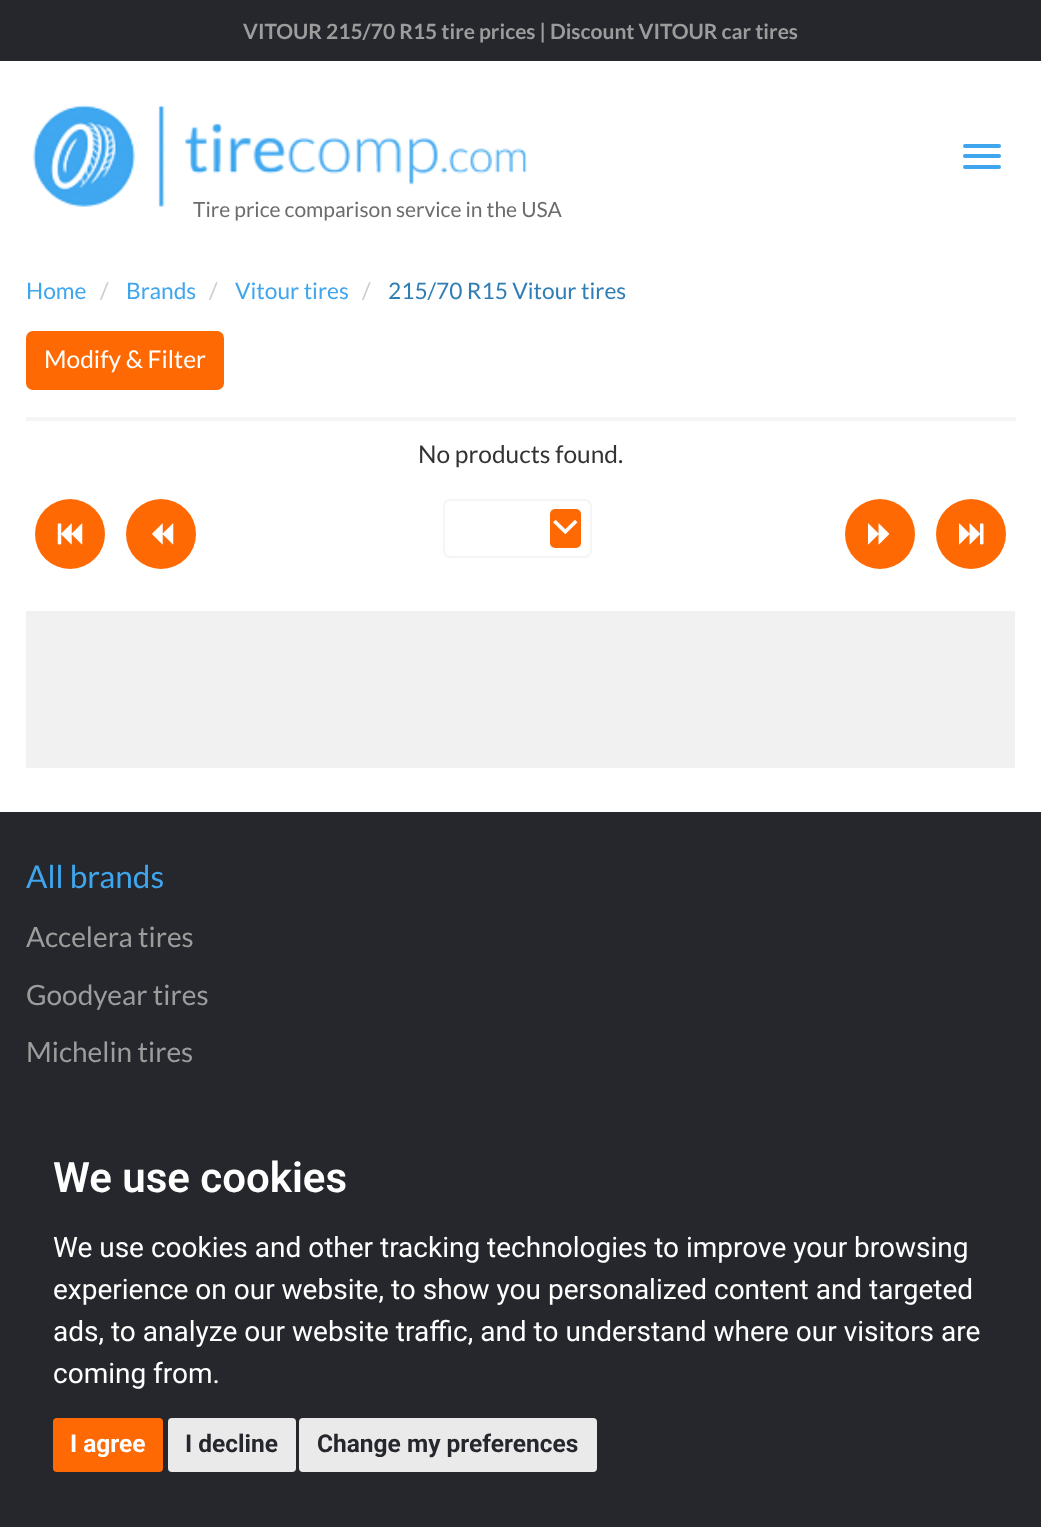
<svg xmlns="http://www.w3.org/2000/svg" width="1041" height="1527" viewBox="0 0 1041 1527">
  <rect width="100%" height="100%" fill="#fff"/>
  <path d="M0 0h1041v61H0z" fill="#25272c"/>
  <rect x="963" y="144" width="38" height="4" rx="2" fill="#3fa6ee"/>
  <rect x="963" y="154" width="38" height="4" rx="2" fill="#3fa6ee"/>
  <rect x="963" y="165" width="38" height="4" rx="2" fill="#3fa6ee"/>
  <image x="33" y="104" width="494" height="103" href="img/1.png"/>
  <rect x="26" y="331" width="198" height="59" rx="7" fill="#fe6903"/>
  <path d="M26 417h990v4H26z" fill="#f5f5f5"/>
  <circle cx="70" cy="534" r="35" fill="#fe6903"/>
  <image x="57" y="523" width="26" height="22" href="img/2.png"/>
  <circle cx="161" cy="534" r="35" fill="#fe6903"/>
  <image x="152" y="523" width="22" height="22" href="img/3.png"/>
  <rect x="444" y="500" width="147" height="57" rx="6" fill="none" stroke="#f5f5f5" stroke-width="2"/>
  <rect x="550" y="509" width="31" height="39" rx="5" fill="#fe6903"/>
  <image x="553" y="520" width="25" height="15" href="img/4.png"/>
  <circle cx="880" cy="534" r="35" fill="#fe6903"/>
  <image x="868" y="523" width="21" height="22" href="img/5.png"/>
  <circle cx="971" cy="534" r="35" fill="#fe6903"/>
  <image x="959" y="523" width="25" height="22" href="img/6.png"/>
  <path d="M26 611h989v157H26z" fill="#f1f1f1"/>
  <path d="M0 812h1041v715H0z" fill="#25272c"/>
  <rect x="53" y="1418" width="110" height="54" rx="4" fill="#fe6903"/>
  <rect x="168" y="1418" width="128" height="54" rx="4" fill="#eaeaea"/>
  <rect x="299" y="1418" width="298" height="54" rx="4" fill="#eaeaea"/>
  <text x="243" y="39" font-family="Lato" font-size="21" font-weight="bold" fill="#9c9c9c">VITOUR 215/70 R15 tire prices | Discount VITOUR car tires</text>
  <text x="193" y="217" font-family="Lato" font-size="21" fill="#6c6c6c">Tire price comparison service in the USA</text>
  <text x="26" y="299" font-family="Lato" font-size="22.75" fill="#3fa6ee">Home</text>
  <text x="100" y="299" font-family="Lato" font-size="22.75" fill="#ccc">/</text>
  <text x="126" y="299" font-family="Lato" font-size="22.75" fill="#3fa6ee">Brands</text>
  <text x="209" y="299" font-family="Lato" font-size="22.75" fill="#ccc">/</text>
  <text x="235" y="299" font-family="Lato" font-size="22.75" fill="#3fa6ee">Vitour tires</text>
  <text x="362" y="299" font-family="Lato" font-size="22.75" fill="#ccc">/</text>
  <text x="388" y="299" font-family="Lato" font-size="22.75" fill="#2f7db5">215/70 R15 Vitour tires</text>
  <text x="44" y="368" font-family="Lato" font-size="24.5" fill="#fff">Modify &amp; Filter</text>
  <text x="418" y="463" font-family="Lato" font-size="24.5" fill="#333">No products found.</text>
  <text x="26" y="888" font-family="Lato" font-size="31.5" fill="#3fa6ee">All brands</text>
  <g font-family="Lato" font-size="28" fill="#9c9c9c">
    <text x="26" y="947">Accelera tires</text>
    <text x="26" y="1005">Goodyear tires</text>
    <text x="26" y="1062">Michelin tires</text>
  </g>
  <text x="53" y="1192" font-family="Roboto" font-size="42" font-weight="600" fill="#fff">We use cookies</text>
  <g font-family="Roboto" font-size="28" fill="#fff">
    <text x="53" y="1257">We use cookies and other tracking technologies to improve your browsing</text>
    <text x="53" y="1299">experience on our website, to show you personalized content and targeted</text>
    <text x="53" y="1341">ads, to analyze our website traffic, and to understand where our visitors are</text>
    <text x="53" y="1383">coming from.</text>
  </g>
  <text x="70" y="1452" font-family="Roboto" font-size="24.5" font-weight="bold" fill="#fff">I agree</text>
  <g font-family="Roboto" font-size="24.5" font-weight="bold" fill="#25272c">
    <text x="185" y="1452">I decline</text>
    <text x="317" y="1452">Change my preferences</text>
  </g>
</svg>
